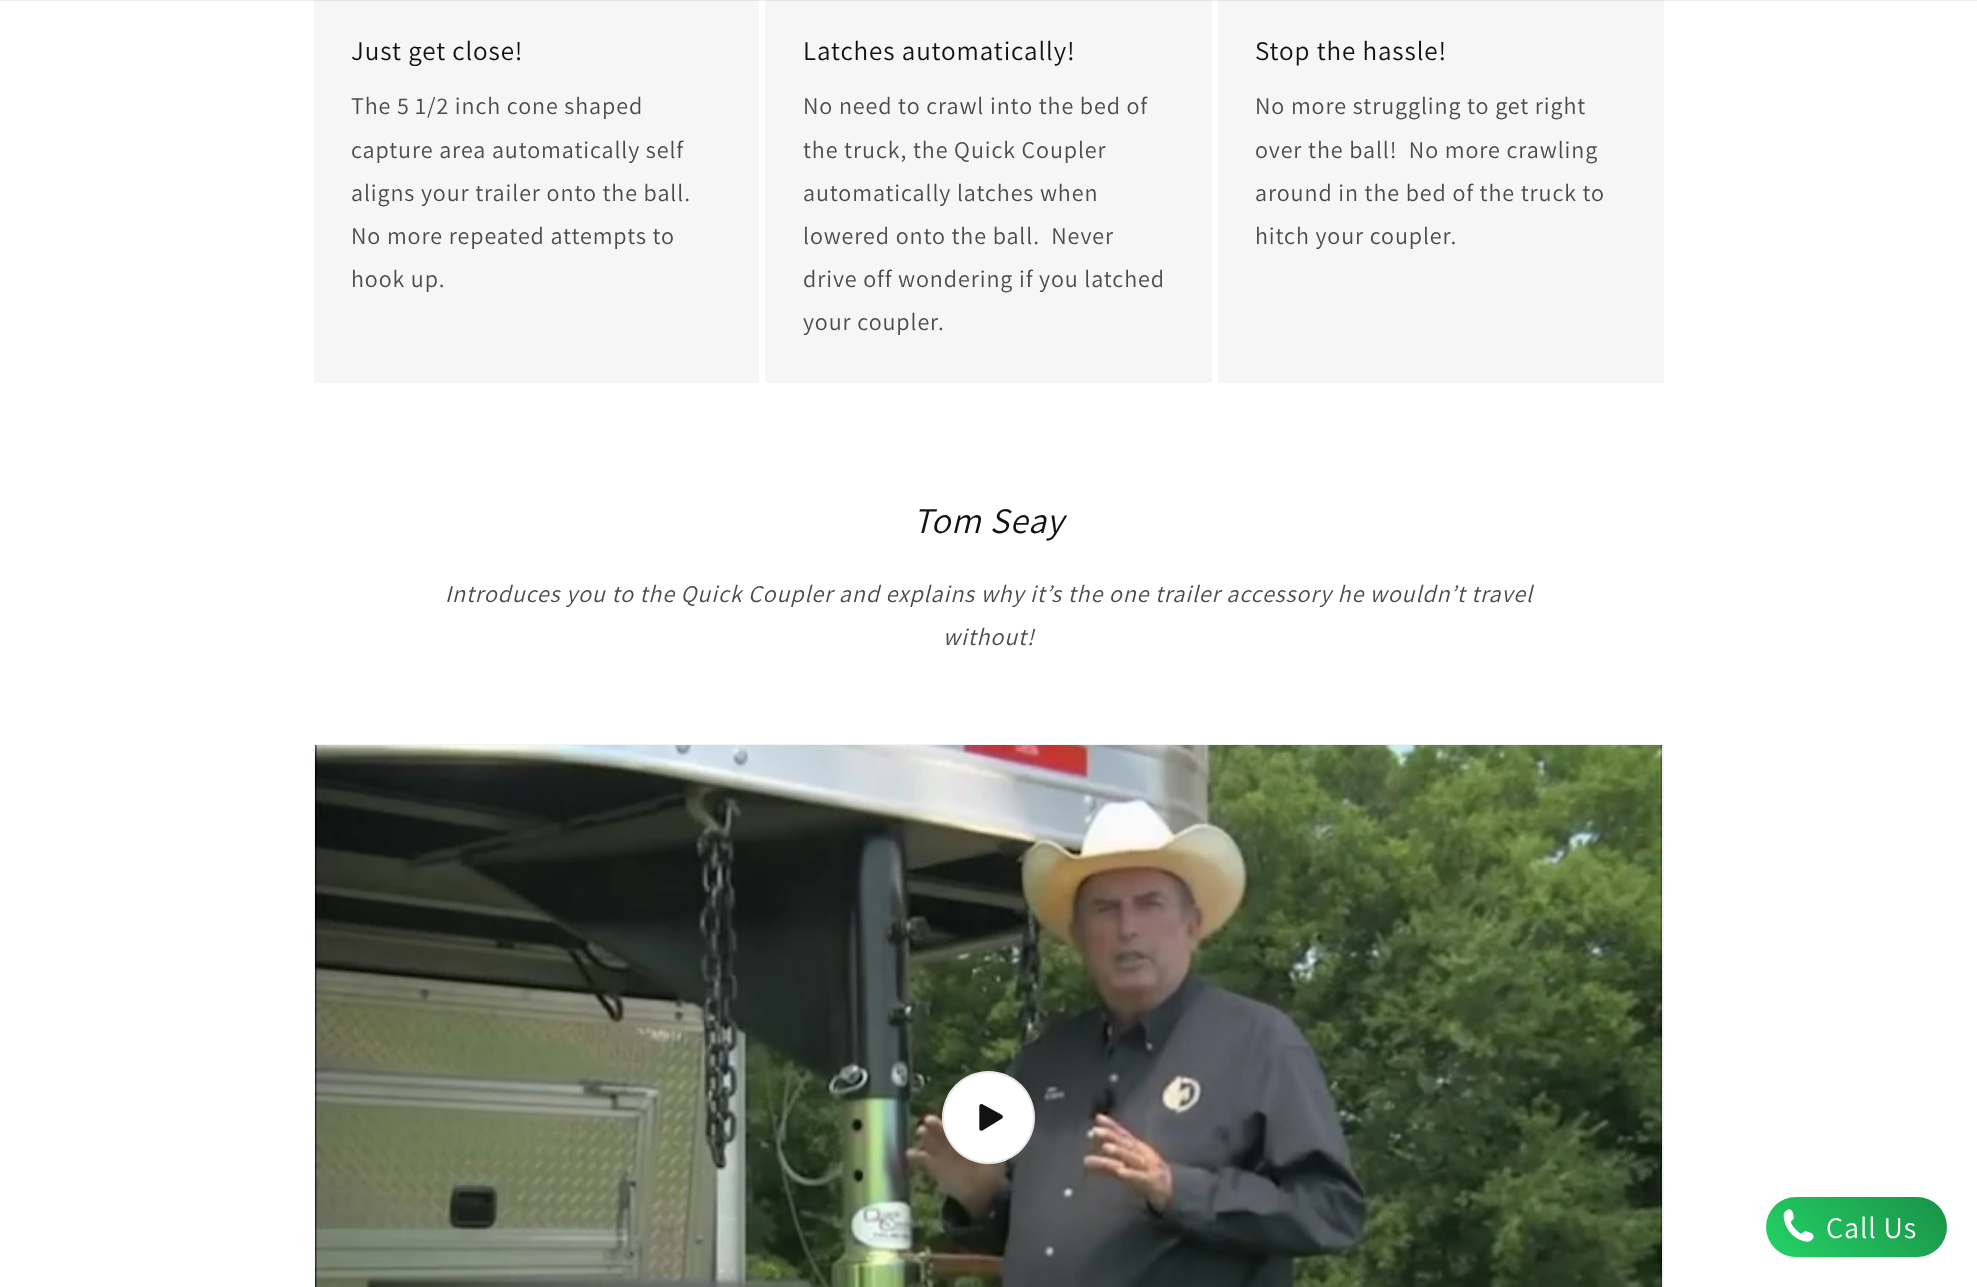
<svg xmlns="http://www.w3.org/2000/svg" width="1977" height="1287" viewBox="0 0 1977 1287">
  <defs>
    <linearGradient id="g1" gradientUnits="userSpaceOnUse" x1="1796" y1="1287" x2="1917" y2="1167"><stop offset="0" stop-color="#25d367"/><stop offset="1" stop-color="#199147"/></linearGradient>
  </defs>
  <rect width="100%" height="100%" fill="#fff"/>
  <path d="M0 0h1977v1H0z" fill="#ececec"/>
  <path d="M314 1h445v382H314z" fill="#f6f6f6"/>
  <path d="M314 0h445v1H314z" fill="#e4e4e4"/>
  <path d="M765 1h447v382H765z" fill="#f6f6f6"/>
  <path d="M765 0h447v1H765z" fill="#e4e4e4"/>
  <path d="M1218 1h446v382H1218z" fill="#f6f6f6"/>
  <path d="M1218 0h446v1H1218z" fill="#e4e4e4"/>
  <path d="M315 745h1348v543H315z" fill="none" stroke="#f3f3f3" stroke-width="2"/>
  <image x="315" y="745" width="1347" height="542" href="img/1.png"/>
  <circle cx="988.5" cy="1117.5" r="46.5" fill="#fff"/>
  <circle cx="988.5" cy="1117.5" r="45.5" fill="none" stroke="#1212121a" stroke-width="2"/>
  <image x="979" y="1104" width="24" height="27" href="img/2.png"/>
  <rect x="1766" y="1197" width="181" height="60" rx="30" fill="url(#g1)"/>
  <image x="1783" y="1209" width="31" height="33" href="img/3.png"/>
  <text x="351" y="60" font-family="Assistant" font-size="27" letter-spacing="0.9" fill="#121212">Just get close!</text>
  <g font-family="Assistant" font-size="24" letter-spacing="0.9" fill="#4b4b4b">
    <text x="351" y="114">The 5 1/2 inch cone shaped</text>
    <text x="351" y="158">capture area automatically self</text>
    <text x="351" y="201">aligns your trailer onto the ball.</text>
    <text x="351" y="244">No more repeated attempts to</text>
    <text x="351" y="287">hook up.</text>
  </g>
  <text x="803" y="60" font-family="Assistant" font-size="27" letter-spacing="0.9" fill="#121212">Latches automatically!</text>
  <g font-family="Assistant" font-size="24" letter-spacing="0.9" fill="#4b4b4b">
    <text x="803" y="114">No need to crawl into the bed of</text>
    <text x="803" y="158">the truck, the Quick Coupler</text>
    <text x="803" y="201">automatically latches when</text>
    <text x="803" y="244" xml:space="preserve">lowered onto the ball.  Never</text>
    <text x="803" y="287">drive off wondering if you latched</text>
    <text x="803" y="330">your coupler.</text>
  </g>
  <text x="1255" y="60" font-family="Assistant" font-size="27" letter-spacing="0.9" fill="#121212">Stop the hassle!</text>
  <g font-family="Assistant" font-size="24" letter-spacing="0.9" fill="#4b4b4b">
    <text x="1255" y="114">No more struggling to get right</text>
    <text x="1255" y="158" xml:space="preserve">over the ball!  No more crawling</text>
    <text x="1255" y="201">around in the bed of the truck to</text>
    <text x="1255" y="244">hitch your coupler.</text>
  </g>
  <text x="913" y="533" font-family="Assistant" font-size="36" font-style="italic" letter-spacing="0.9" fill="#121212">Tom Seay</text>
  <g font-family="Assistant" font-size="24" font-style="italic" letter-spacing="0.9" fill="#4b4b4b">
    <text x="445" y="602">Introduces you to the Quick Coupler and explains why it’s the one trailer accessory he wouldn’t travel</text>
    <text x="943" y="645">without!</text>
  </g>
  <text x="1826" y="1238" font-family="Assistant" font-size="30" letter-spacing="0.9" fill="#fff">Call Us</text>
</svg>
